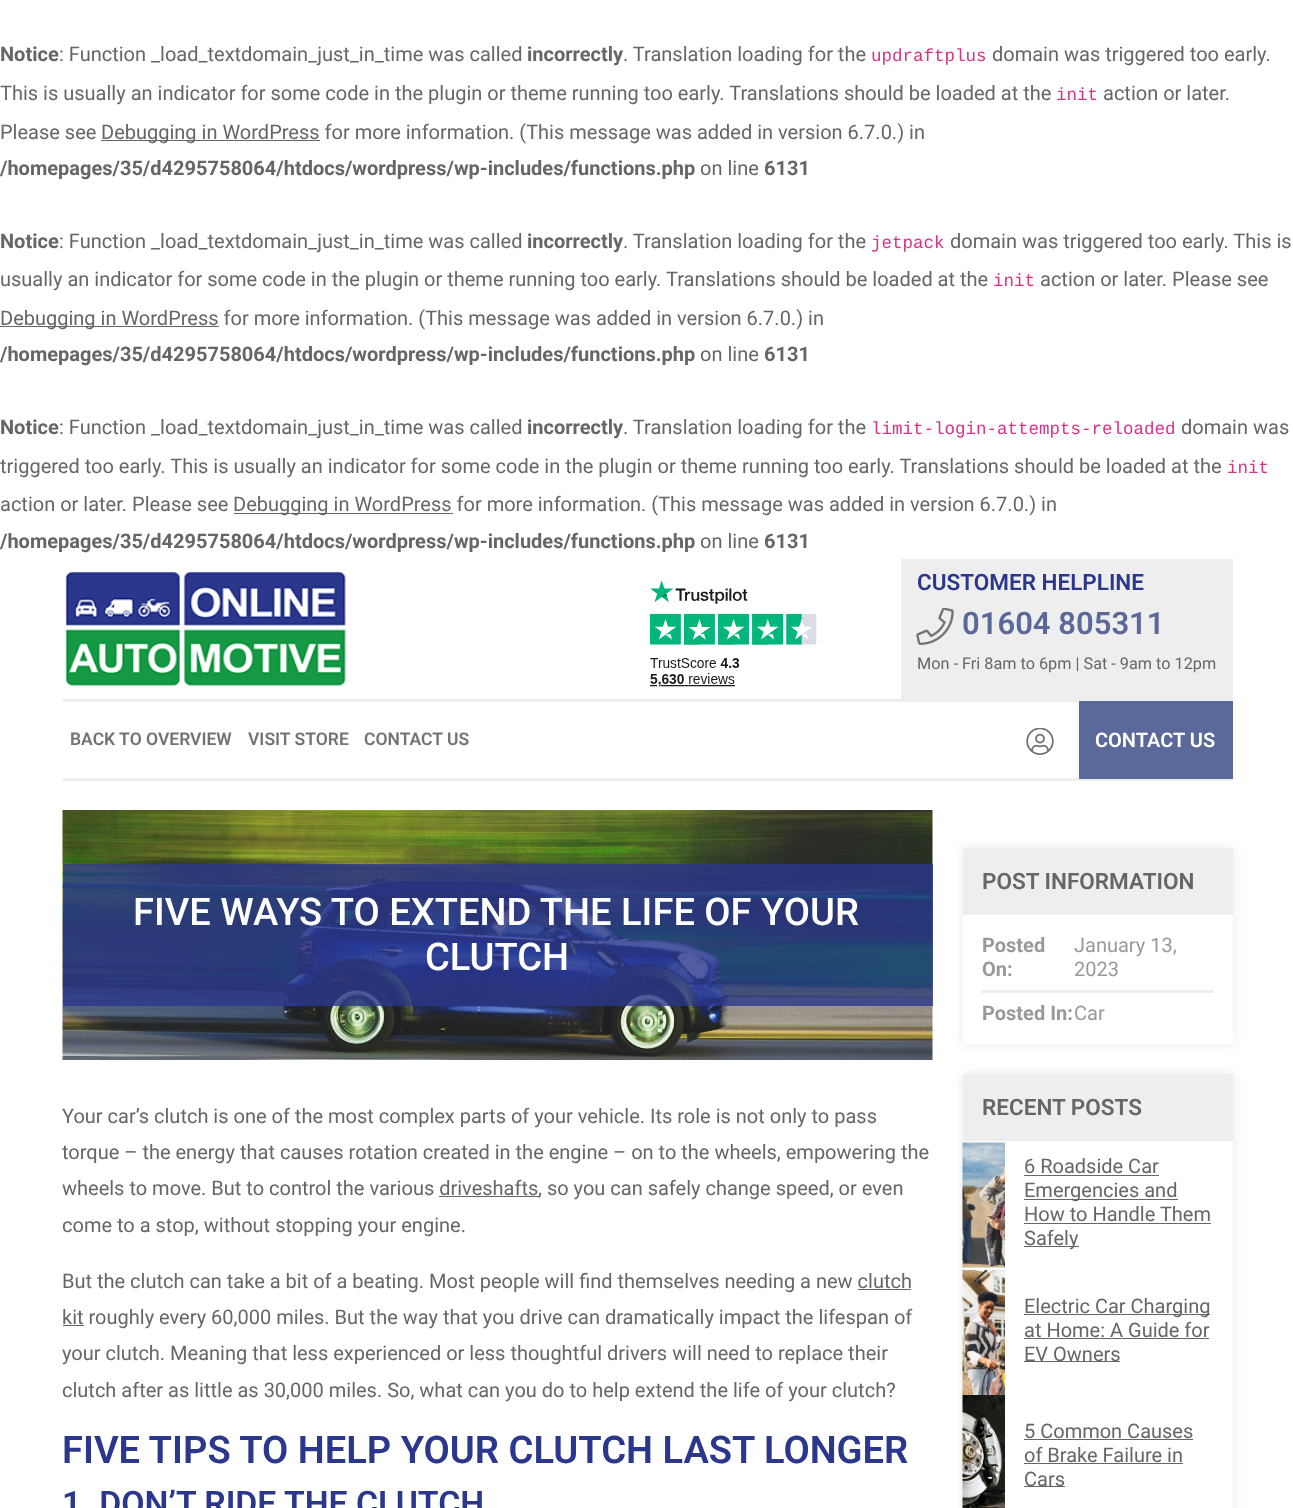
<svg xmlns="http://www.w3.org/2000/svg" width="1293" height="1508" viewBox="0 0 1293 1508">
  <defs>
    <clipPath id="clip1"><path d="M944 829H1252V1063H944ZM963 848H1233V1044H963Z" clip-rule="evenodd"/></clipPath>
    <clipPath id="clip2"><path d="M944 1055H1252V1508H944ZM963 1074H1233V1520H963Z" clip-rule="evenodd"/></clipPath>
  </defs>
  <rect width="100%" height="100%" fill="#fff"/>
  <path d="M101 140h219v1H101z" fill="#666"/>
  <path d="M0 326h219v1H0z" fill="#666"/>
  <path d="M234 513h219v1H234z" fill="#666"/>
  <image x="65" y="571" width="281" height="115" href="img/1.png"/>
  <image x="650" y="580" width="167" height="107" href="img/2.png"/>
  <path d="M901 559h332v140H901z" fill="#eee"/>
  <image x="916" y="608" width="38" height="37" href="img/3.png"/>
  <path d="M63 699h1170v3H63z" fill="#eee"/>
  <path d="M63 778h1170v3H63z" fill="#eee"/>
  <image x="1026" y="728" width="28" height="27" href="img/4.png"/>
  <path d="M1079 701h154v78H1079z" fill="#5a689a"/>
  <image x="62" y="810" width="871" height="250" href="img/5.png"/>
  <path d="M63 864h870v142H63z" fill="#2a378ccc"/>
  <path d="M439 1196h100v1H439z" fill="#666"/>
  <path d="M858 1289h53v1H858z" fill="#666"/>
  <path d="M63 1325h21v1H63z" fill="#666"/>
  <g clip-path="url(#clip1)">
    <path d="M963 848h270v196H963z" fill="#3434341c" filter="blur(6px)"/>
  </g>
  <path d="M963 848h270v67H963z" fill="#eee"/>
  <path d="M981 990h233v3H981z" fill="#eee"/>
  <g clip-path="url(#clip2)">
    <path d="M963 1074h270v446H963z" fill="#3434341c" filter="blur(6px)"/>
  </g>
  <path d="M963 1074h270v67H963z" fill="#eee"/>
  <image x="962" y="1142" width="43" height="126" href="img/6.png"/>
  <path d="M1024 1175h135v1H1024z" fill="#666"/>
  <path d="M1024 1199h154v1H1024z" fill="#666"/>
  <path d="M1024 1223h187v1H1024z" fill="#666"/>
  <path d="M1024 1246h55v1H1024z" fill="#666"/>
  <image x="962" y="1270" width="43" height="125" href="img/7.png"/>
  <path d="M1024 1314h186v1H1024z" fill="#666"/>
  <path d="M1024 1338h185v1H1024z" fill="#666"/>
  <path d="M1024 1361h96v1H1024z" fill="#666"/>
  <image x="962" y="1395" width="43" height="113" href="img/8.png"/>
  <path d="M1024 1439h169v1H1024z" fill="#666"/>
  <path d="M1024 1463h159v1H1024z" fill="#666"/>
  <path d="M1024 1486h41v1H1024z" fill="#666"/>
  <text x="0" y="61" font-family="Roboto" font-size="20" font-weight="bold" fill="#666">Notice</text>
  <text x="59" y="61" font-family="Roboto" font-size="20" fill="#666">: Function _load_textdomain_just_in_time was called</text>
  <text x="527" y="61" font-family="Roboto" font-size="20" font-weight="bold" fill="#666">incorrectly</text>
  <text x="623" y="61" font-family="Roboto" font-size="20" fill="#666">. Translation loading for the</text>
  <text x="871" y="61" font-family="Liberation Mono" font-size="17.5" fill="#d63384">updraftplus</text>
  <g font-family="Roboto" font-size="20" fill="#666">
    <text x="992" y="61">domain was triggered too early.</text>
    <text x="0" y="100">This is usually an indicator for some code in the plugin or theme running too early. Translations should be loaded at the</text>
  </g>
  <text x="1056" y="100" font-family="Liberation Mono" font-size="17.5" fill="#d63384">init</text>
  <g font-family="Roboto" font-size="20" fill="#666">
    <text x="1103" y="100">action or later.</text>
    <text x="0" y="139">Please see</text>
    <text x="101" y="139">Debugging in WordPress for more information. (This message was added in version 6.7.0.) in</text>
  </g>
  <text x="0" y="175" font-family="Roboto" font-size="20" font-weight="bold" fill="#666">/homepages/35/d4295758064/htdocs/wordpress/wp-includes/functions.php</text>
  <text x="700" y="175" font-family="Roboto" font-size="20" fill="#666">on line</text>
  <g font-family="Roboto" font-size="20" font-weight="bold" fill="#666">
    <text x="764" y="175">6131</text>
    <text x="0" y="248">Notice</text>
  </g>
  <text x="59" y="248" font-family="Roboto" font-size="20" fill="#666">: Function _load_textdomain_just_in_time was called</text>
  <text x="527" y="248" font-family="Roboto" font-size="20" font-weight="bold" fill="#666">incorrectly</text>
  <text x="623" y="248" font-family="Roboto" font-size="20" fill="#666">. Translation loading for the</text>
  <text x="871" y="248" font-family="Liberation Mono" font-size="17.5" fill="#d63384">jetpack</text>
  <g font-family="Roboto" font-size="20" fill="#666">
    <text x="950" y="248">domain was triggered too early. This is</text>
    <text x="0" y="286">usually an indicator for some code in the plugin or theme running too early. Translations should be loaded at the</text>
  </g>
  <text x="993" y="286" font-family="Liberation Mono" font-size="17.5" fill="#d63384">init</text>
  <g font-family="Roboto" font-size="20" fill="#666">
    <text x="1040" y="286">action or later. Please see</text>
    <text x="0" y="325">Debugging in WordPress for more information. (This message was added in version 6.7.0.) in</text>
  </g>
  <text x="0" y="361" font-family="Roboto" font-size="20" font-weight="bold" fill="#666">/homepages/35/d4295758064/htdocs/wordpress/wp-includes/functions.php</text>
  <text x="700" y="361" font-family="Roboto" font-size="20" fill="#666">on line</text>
  <g font-family="Roboto" font-size="20" font-weight="bold" fill="#666">
    <text x="764" y="361">6131</text>
    <text x="0" y="434">Notice</text>
  </g>
  <text x="59" y="434" font-family="Roboto" font-size="20" fill="#666">: Function _load_textdomain_just_in_time was called</text>
  <text x="527" y="434" font-family="Roboto" font-size="20" font-weight="bold" fill="#666">incorrectly</text>
  <text x="623" y="434" font-family="Roboto" font-size="20" fill="#666">. Translation loading for the</text>
  <text x="871" y="434" font-family="Liberation Mono" font-size="17.5" fill="#d63384">limit-login-attempts-reloaded</text>
  <g font-family="Roboto" font-size="20" fill="#666">
    <text x="1181" y="434">domain was</text>
    <text x="0" y="473">triggered too early. This is usually an indicator for some code in the plugin or theme running too early. Translations should be loaded at the</text>
  </g>
  <text x="1227" y="473" font-family="Liberation Mono" font-size="17.5" fill="#d63384">init</text>
  <g font-family="Roboto" font-size="20" fill="#666">
    <text x="0" y="511">action or later. Please see</text>
    <text x="233" y="511">Debugging in WordPress for more information. (This message was added in version 6.7.0.) in</text>
  </g>
  <text x="0" y="548" font-family="Roboto" font-size="20" font-weight="bold" fill="#666">/homepages/35/d4295758064/htdocs/wordpress/wp-includes/functions.php</text>
  <text x="700" y="548" font-family="Roboto" font-size="20" fill="#666">on line</text>
  <text x="764" y="548" font-family="Roboto" font-size="20" font-weight="bold" fill="#666">6131</text>
  <text x="917" y="590" font-family="Roboto" font-size="22.5" font-weight="600" fill="#2a378c">CUSTOMER HELPLINE</text>
  <text x="962" y="634" font-family="Roboto" font-size="31" font-weight="600" fill="#5a689a">01604 805311</text>
  <text x="917" y="669" font-family="Roboto" font-size="16.25" fill="#666">Mon - Fri 8am to 6pm | Sat - 9am to 12pm</text>
  <g font-family="Roboto" font-size="17.5" font-weight="600" fill="#737373">
    <text x="70" y="745">BACK TO OVERVIEW</text>
    <text x="248" y="745">VISIT STORE</text>
    <text x="364" y="745">CONTACT US</text>
  </g>
  <text x="1095" y="747" font-family="Roboto" font-size="20" font-weight="600" fill="#fff">CONTACT US</text>
  <g font-family="Roboto" font-size="38.1" font-weight="500" fill="#fff">
    <text x="133" y="925">FIVE WAYS TO EXTEND THE LIFE OF YOUR</text>
    <text x="425" y="970">CLUTCH</text>
  </g>
  <g font-family="Roboto" font-size="20" fill="#666">
    <text x="62" y="1123">Your car’s clutch is one of the most complex parts of your vehicle. Its role is not only to pass</text>
    <text x="62" y="1159">torque – the energy that causes rotation created in the engine – on to the wheels, empowering the</text>
    <text x="62" y="1195">wheels to move. But to control the various driveshafts</text>
    <text x="538" y="1195">, so you can safely change speed, or even</text>
    <text x="62" y="1232">come to a stop, without stopping your engine.</text>
    <text x="62" y="1288">But the clutch can take a bit of a beating. Most people will find themselves needing a new clutch</text>
    <text x="62" y="1324">kit roughly every 60,000 miles. But the way that you drive can dramatically impact the lifespan of</text>
    <text x="62" y="1360">your clutch. Meaning that less experienced or less thoughtful drivers will need to replace their</text>
    <text x="62" y="1397">clutch after as little as 30,000 miles. So, what can you do to help extend the life of your clutch?</text>
  </g>
  <text x="62" y="1463" font-family="Roboto" font-size="38.1" font-weight="600" fill="#2a378c">FIVE TIPS TO HELP YOUR CLUTCH LAST LONGER</text>
  <text x="62" y="1515" font-family="Roboto" font-size="33.75" font-weight="600" fill="#2a378c">1. DON’T RIDE THE CLUTCH</text>
  <text x="982" y="889" font-family="Roboto" font-size="22.5" font-weight="600" fill="#666">POST INFORMATION</text>
  <g font-family="Roboto" font-size="20" font-weight="bold" fill="#999">
    <text x="982" y="952">Posted</text>
    <text x="982" y="976">On:</text>
  </g>
  <g font-family="Roboto" font-size="20" fill="#999">
    <text x="1074" y="952">January 13,</text>
    <text x="1074" y="976">2023</text>
  </g>
  <text x="982" y="1020" font-family="Roboto" font-size="20" font-weight="bold" fill="#999">Posted In:</text>
  <text x="1074" y="1020" font-family="Roboto" font-size="20" fill="#999">Car</text>
  <text x="982" y="1115" font-family="Roboto" font-size="22.5" font-weight="600" fill="#666">RECENT POSTS</text>
  <g font-family="Roboto" font-size="20" fill="#666">
    <text x="1024" y="1173">6 Roadside Car</text>
    <text x="1024" y="1197">Emergencies and</text>
    <text x="1024" y="1221">How to Handle Them</text>
    <text x="1024" y="1245">Safely</text>
    <text x="1024" y="1313">Electric Car Charging</text>
    <text x="1024" y="1337">at Home: A Guide for</text>
    <text x="1024" y="1361">EV Owners</text>
    <text x="1024" y="1438">5 Common Causes</text>
    <text x="1024" y="1462">of Brake Failure in</text>
    <text x="1024" y="1486">Cars</text>
  </g>
</svg>
